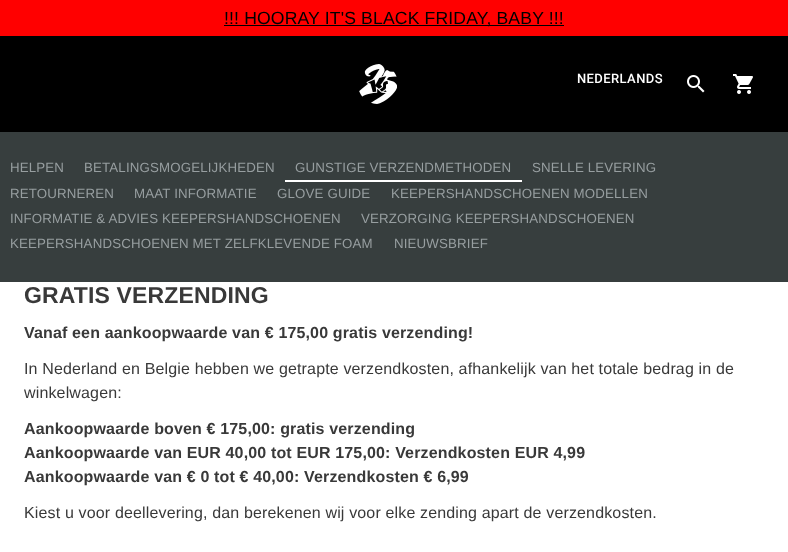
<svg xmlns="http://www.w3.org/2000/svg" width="788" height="552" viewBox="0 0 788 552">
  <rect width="100%" height="100%" fill="#373e3e"/>
  <path d="M0 0h788v36H0z" fill="#f00"/>
  <path d="M224 25h340v1H224z" fill="#000"/>
  <path d="M0 36h788v96H0z" fill="#000"/>
  <image x="359" y="64" width="38" height="40" href="img/1.png"/>
  <image x="687" y="75" width="18" height="18" href="img/2.png"/>
  <image x="733" y="74" width="20" height="20" href="img/3.png"/>
  <path d="M285 180h237v2H285z" fill="#fff"/>
  <path d="M0 282h788v270H0z" fill="#fff"/>
  <text x="224" y="24" font-family="Liberation Sans" font-size="17.6" letter-spacing="0.15" fill="#000">!!! HOORAY IT'S BLACK FRIDAY, BABY !!!</text>
  <text x="577" y="83" font-family="Roboto" font-size="13" font-weight="500" letter-spacing="0.4" fill="#fff">NEDERLANDS</text>
  <g font-family="Liberation Sans" font-size="13.3" letter-spacing="0.15" fill="#979ea0">
    <text x="10" y="172">HELPEN</text>
    <text x="84" y="172">BETALINGSMOGELIJKHEDEN</text>
    <text x="295" y="172">GUNSTIGE VERZENDMETHODEN</text>
    <text x="532" y="172">SNELLE LEVERING</text>
    <text x="10" y="198">RETOURNEREN</text>
    <text x="134" y="198">MAAT INFORMATIE</text>
    <text x="277" y="198">GLOVE GUIDE</text>
    <text x="391" y="198">KEEPERSHANDSCHOENEN MODELLEN</text>
    <text x="10" y="223">INFORMATIE &amp; ADVIES KEEPERSHANDSCHOENEN</text>
    <text x="361" y="223">VERZORGING KEEPERSHANDSCHOENEN</text>
    <text x="10" y="248">KEEPERSHANDSCHOENEN MET ZELFKLEVENDE FOAM</text>
    <text x="394" y="248">NIEUWSBRIEF</text>
  </g>
  <text x="24" y="303" font-family="Liberation Sans" font-size="23" font-weight="bold" letter-spacing="0.15" fill="#393939">GRATIS VERZENDING</text>
  <text x="24" y="338" font-family="Liberation Sans" font-size="16" font-weight="bold" letter-spacing="0.15" fill="#393939">Vanaf een aankoopwaarde van € 175,00 gratis verzending!</text>
  <g font-family="Liberation Sans" font-size="16" letter-spacing="0.15" fill="#393939">
    <text x="24" y="374">In Nederland en Belgie hebben we getrapte verzendkosten, afhankelijk van het totale bedrag in de</text>
    <text x="24" y="398">winkelwagen:</text>
  </g>
  <g font-family="Liberation Sans" font-size="16" font-weight="bold" letter-spacing="0.15" fill="#393939">
    <text x="24" y="434">Aankoopwaarde boven € 175,00: gratis verzending</text>
    <text x="24" y="458">Aankoopwaarde van EUR 40,00 tot EUR 175,00: Verzendkosten EUR 4,99</text>
    <text x="24" y="482">Aankoopwaarde van € 0 tot € 40,00: Verzendkosten € 6,99</text>
  </g>
  <text x="24" y="518" font-family="Liberation Sans" font-size="16" letter-spacing="0.15" fill="#393939">Kiest u voor deellevering, dan berekenen wij voor elke zending apart de verzendkosten.</text>
</svg>
